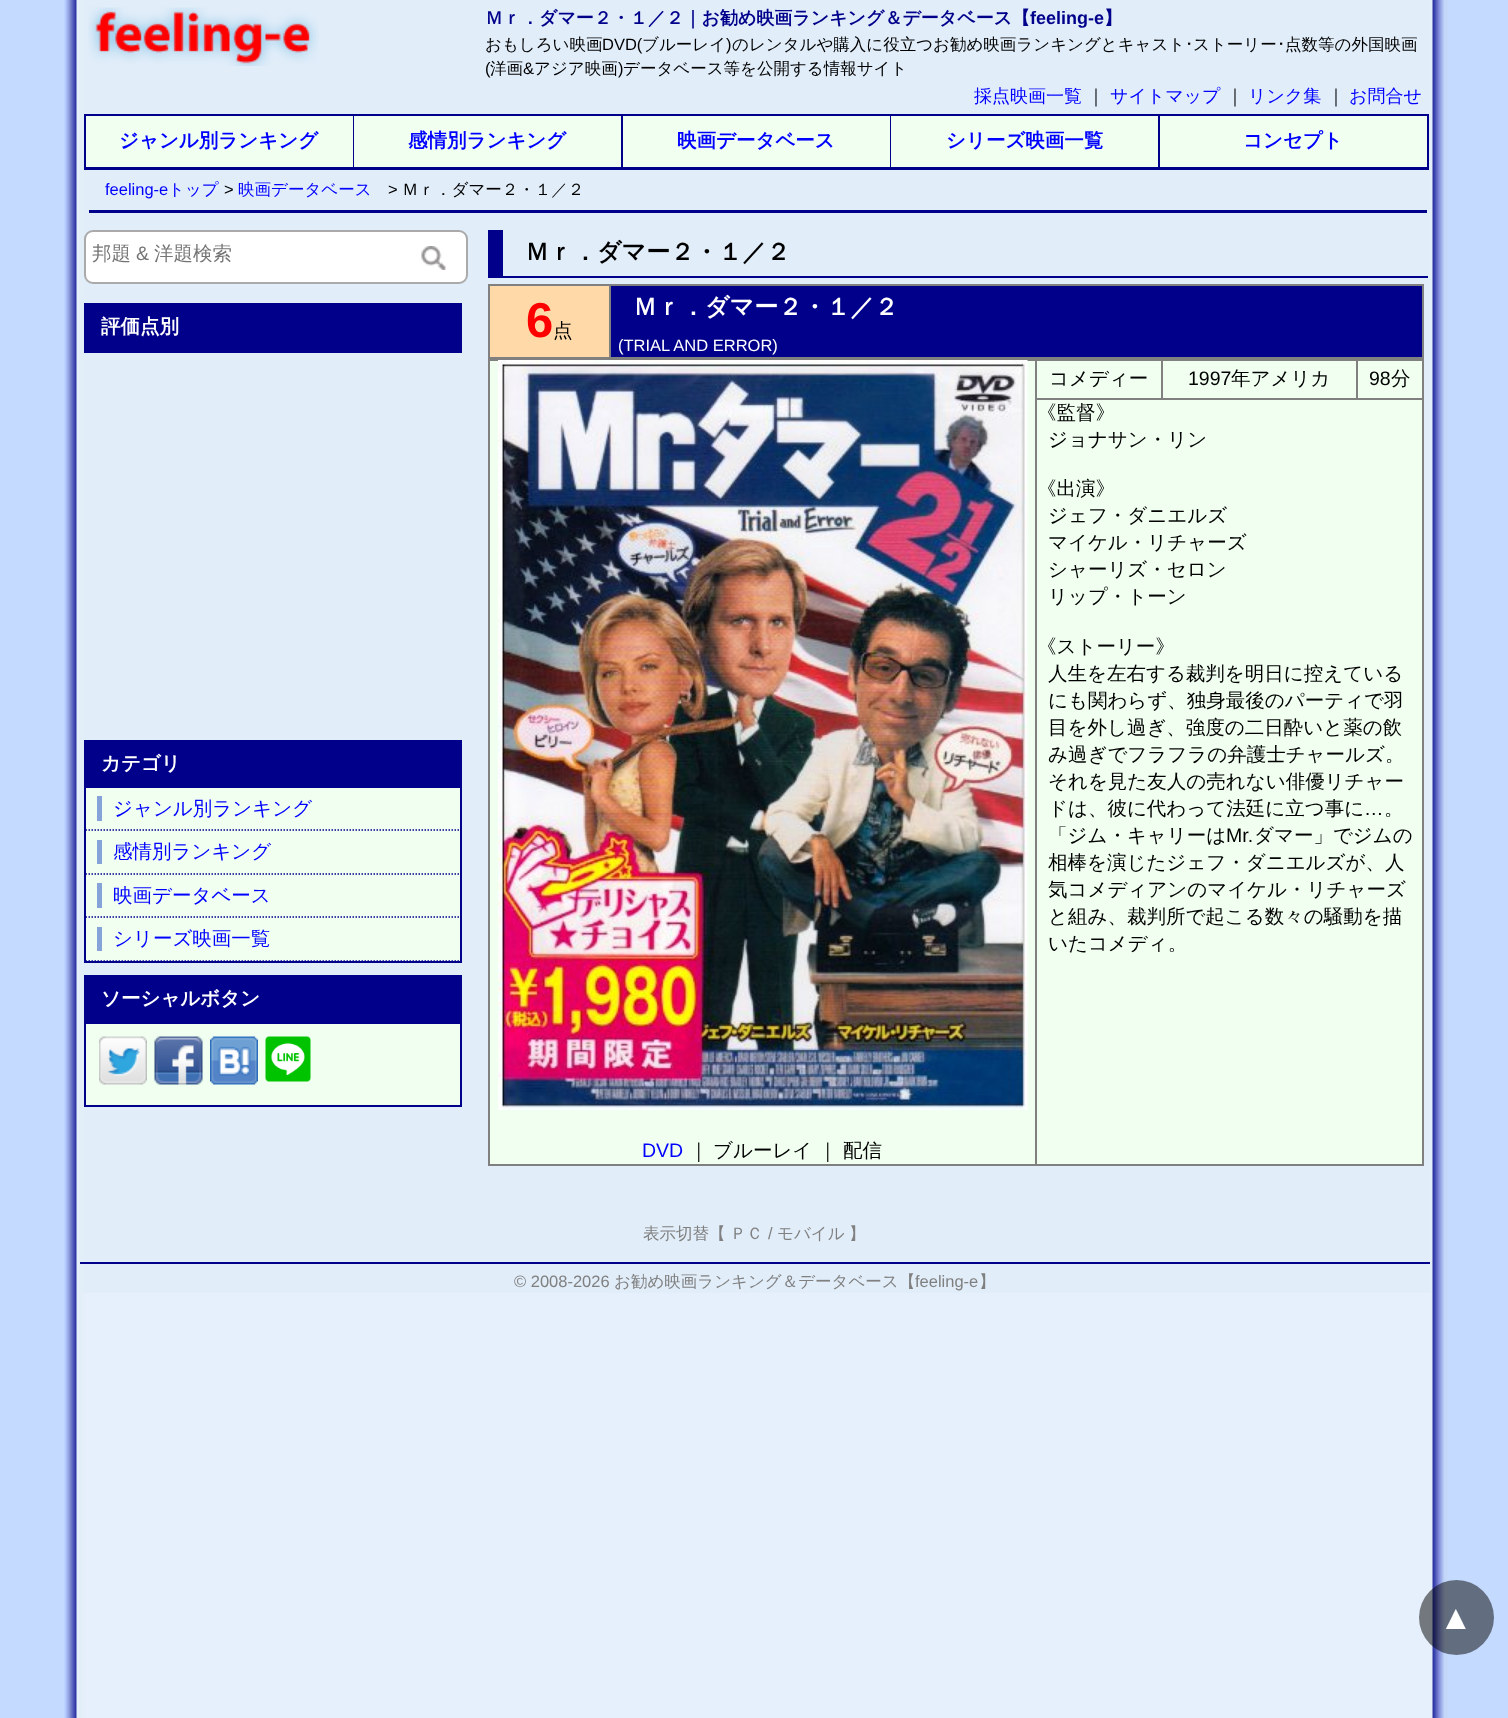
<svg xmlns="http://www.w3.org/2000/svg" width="1508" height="1718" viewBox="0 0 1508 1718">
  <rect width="100%" height="100%" fill="#c5daff"/>
  <image x="64" y="0" width="1384" height="1718" href="img/1.png"/>
  <path d="M83 0h1347v1293H83z" fill="#e1edf9"/>
  <image x="88" y="7" width="231" height="59" href="img/2.png"/>
  <path d="M84 114h1344v2H84z" fill="#00008b"/>
  <path d="M84 167h1074v3H84z" fill="#00008b"/>
  <path d="M84 114h2v56H84z" fill="#00008b"/>
  <path d="M86 116h267v51H86z" fill="#f0fff0"/>
  <path d="M353 114h2v56H353z" fill="#00008b"/>
  <path d="M354 116h267v51H354z" fill="#f0fff0"/>
  <path d="M621 114h2v56H621z" fill="#00008b"/>
  <path d="M623 116h267v51H623z" fill="#f0fff0"/>
  <path d="M890 114h2v56H890z" fill="#00008b"/>
  <path d="M891 116h267v51H891z" fill="#f0fff0"/>
  <path d="M1427 114h2v56H1427z" fill="#00008b"/>
  <path d="M1158 167h270v3H1158z" fill="#00008b"/>
  <path d="M1158 114h2v56H1158z" fill="#00008b"/>
  <path d="M1160 116h267v51H1160z" fill="#f0fff0"/>
  <path d="M89 210h1338v3H89z" fill="#00008b"/>
  <rect x="85" y="231" width="382" height="52" rx="8" fill="#fff" stroke="#aaa" stroke-width="2"/>
  <image x="421" y="246" width="25" height="24" href="img/3.png"/>
  <path d="M85 304h376v48H85z" fill="none" stroke="#00008b" stroke-width="2"/>
  <path d="M86 305h374v46H86z" fill="#00008b"/>
  <path d="M86 788h374v173H86z" fill="#f0fff0"/>
  <path d="M85 741h376v221H85z" fill="none" stroke="#00008b" stroke-width="2"/>
  <path d="M86 742h374v46H86z" fill="#00008b"/>
  <path d="M97 796h5v25H97z" fill="#85a3d8"/>
  <path d="M85.5 830H460.5" fill="none" stroke="#00008b" stroke-width="1.5" stroke-dasharray="1.5 1.5"/>
  <path d="M97 840h5v24H97z" fill="#85a3d8"/>
  <path d="M85.5 874H460.5" fill="none" stroke="#00008b" stroke-width="1.5" stroke-dasharray="1.5 1.5"/>
  <path d="M97 883h5v25H97z" fill="#85a3d8"/>
  <path d="M85.5 917H460.5" fill="none" stroke="#00008b" stroke-width="1.5" stroke-dasharray="1.5 1.5"/>
  <path d="M97 927h5v24H97z" fill="#85a3d8"/>
  <path d="M85.5 961H460.5" fill="none" stroke="#00008b" stroke-width="1.5" stroke-dasharray="1.5 1.5"/>
  <path d="M86 1024h374v81H86z" fill="#f0fff0"/>
  <path d="M85 976h376v130H85z" fill="none" stroke="#00008b" stroke-width="2"/>
  <path d="M86 977h374v45H86z" fill="#00008b"/>
  <path d="M86 1022h375v2H86z" fill="#00008b"/>
  <image x="99" y="1036" width="48" height="49" href="img/4.png"/>
  <image x="154" y="1036" width="49" height="49" href="img/5.png"/>
  <image x="210" y="1036" width="48" height="49" href="img/6.png"/>
  <image x="265" y="1036" width="46" height="46" href="img/7.png"/>
  <path d="M503 276h925v2H503z" fill="#00008b"/>
  <path d="M488 230h15v48H488z" fill="#00008b"/>
  <path d="M488 284h936v2H488z" fill="#808080"/>
  <path d="M1422 284h2v75H1422z" fill="#808080"/>
  <path d="M488 357h936v4H488z" fill="#808080"/>
  <path d="M488 284h2v75H488z" fill="#808080"/>
  <path d="M490 286h119v71H490z" fill="#ffdaa8"/>
  <path d="M611 286h811v71H611z" fill="#00008b"/>
  <path d="M609 284h2v75H609z" fill="#808080"/>
  <path d="M1422 359h2v807H1422z" fill="#808080"/>
  <path d="M488 1164h936v2H488z" fill="#808080"/>
  <path d="M488 359h2v807H488z" fill="#808080"/>
  <path d="M490 361h932v803H490z" fill="#f0fff0"/>
  <path d="M1035 398h389v2H1035z" fill="#808080"/>
  <path d="M1161 359h2v40H1161z" fill="#808080"/>
  <path d="M1356 359h2v40H1356z" fill="#808080"/>
  <image x="498" y="360" width="530" height="750" href="img/8.png"/>
  <path d="M1035 359h2v807H1035z" fill="#808080"/>
  <path d="M80 1262h1350v2H80z" fill="#00008b"/>
  <circle cx="1456.5" cy="1617.5" r="37.5" fill="#00000080"/>
  <text x="485" y="24" font-family="WenQuanYi Zen Hei" font-size="18" font-weight="bold" fill="#00008b">Ｍｒ．ダマー２・１／２｜お勧め映画ランキング＆データベース【</text>
  <text x="1030" y="24" font-family="Liberation Sans" font-size="18" font-weight="bold" fill="#00008b">feeling-e</text>
  <text x="1104" y="24" font-family="WenQuanYi Zen Hei" font-size="18" font-weight="bold" fill="#00008b">】</text>
  <text x="485" y="50" font-family="WenQuanYi Zen Hei" font-size="16.5" font-weight="500" fill="#000">おもしろい映画</text>
  <text x="602" y="50" font-family="Liberation Sans" font-size="16.5" fill="#000">DVD(</text>
  <text x="642" y="50" font-family="WenQuanYi Zen Hei" font-size="16.5" font-weight="500" fill="#000">ブルーレイ</text>
  <text x="726" y="50" font-family="Liberation Sans" font-size="16.5" fill="#000">)</text>
  <text x="732" y="50" font-family="WenQuanYi Zen Hei" font-size="16.5" font-weight="500" fill="#000">のレンタルや購入に役立つお勧め映画ランキングとキャスト</text>
  <text x="1185" y="50" font-family="IPAGothic" font-size="16.5" fill="#000">･</text>
  <text x="1193" y="50" font-family="WenQuanYi Zen Hei" font-size="16.5" font-weight="500" fill="#000">ストーリー</text>
  <text x="1277" y="50" font-family="IPAGothic" font-size="16.5" fill="#000">･</text>
  <text x="1285" y="50" font-family="WenQuanYi Zen Hei" font-size="16.5" font-weight="500" fill="#000">点数等の外国映画</text>
  <text x="485" y="74" font-family="Liberation Sans" font-size="16.5" fill="#000">(</text>
  <text x="490" y="74" font-family="WenQuanYi Zen Hei" font-size="16.5" font-weight="500" fill="#000">洋画</text>
  <text x="523" y="74" font-family="Liberation Sans" font-size="16.5" fill="#000">&amp;</text>
  <text x="534" y="74" font-family="WenQuanYi Zen Hei" font-size="16.5" font-weight="500" fill="#000">アジア映画</text>
  <text x="618" y="74" font-family="Liberation Sans" font-size="16.5" fill="#000">)</text>
  <text x="623" y="74" font-family="WenQuanYi Zen Hei" font-size="16.5" font-weight="500" fill="#000">データベース等を公開する情報サイト</text>
  <text x="974" y="102" font-family="WenQuanYi Zen Hei" font-size="18" font-weight="500" fill="#00f">採点映画一覧</text>
  <text x="1087" y="102" font-family="WenQuanYi Zen Hei" font-size="18" font-weight="500" fill="#000">｜</text>
  <text x="1110" y="102" font-family="WenQuanYi Zen Hei" font-size="18" font-weight="500" fill="#00f">サイトマップ</text>
  <text x="1226" y="102" font-family="WenQuanYi Zen Hei" font-size="18" font-weight="500" fill="#000">｜</text>
  <text x="1248" y="102" font-family="WenQuanYi Zen Hei" font-size="18" font-weight="500" fill="#00f">リンク集</text>
  <text x="1327" y="102" font-family="WenQuanYi Zen Hei" font-size="18" font-weight="500" fill="#000">｜</text>
  <text x="1349" y="102" font-family="WenQuanYi Zen Hei" font-size="18" font-weight="500" fill="#00f">お問合せ</text>
  <g font-family="WenQuanYi Zen Hei" font-size="19.5" font-weight="bold" fill="#00f">
    <text x="119" y="147">ジャンル別ランキング</text>
    <text x="408" y="147">感情別ランキング</text>
    <text x="677" y="147">映画データベース</text>
    <text x="946" y="147">シリーズ映画一覧</text>
    <text x="1243" y="147">コンセプト</text>
  </g>
  <text x="105" y="195" font-family="Liberation Sans" font-size="16.5" fill="#00f">feeling-e</text>
  <text x="168" y="195" font-family="WenQuanYi Zen Hei" font-size="16.5" font-weight="500" fill="#00f">トップ</text>
  <text x="224" y="195" font-family="Liberation Sans" font-size="16.5" fill="#000">&gt;</text>
  <text x="238" y="195" font-family="WenQuanYi Zen Hei" font-size="16.5" font-weight="500" fill="#00f">映画データベース</text>
  <text x="388" y="195" font-family="Liberation Sans" font-size="16.5" fill="#000">&gt;</text>
  <text x="402" y="195" font-family="WenQuanYi Zen Hei" font-size="16.5" font-weight="500" fill="#000">Ｍｒ．ダマー２・１／２</text>
  <text x="92" y="260" font-family="WenQuanYi Zen Hei" font-size="19.5" font-weight="500" fill="#757575">邦題</text>
  <text x="136" y="260" font-family="Liberation Sans" font-size="19.5" fill="#757575">&amp;</text>
  <text x="154" y="260" font-family="WenQuanYi Zen Hei" font-size="19.5" font-weight="500" fill="#757575">洋題検索</text>
  <g font-family="WenQuanYi Zen Hei" font-size="19.5" font-weight="bold" fill="#fff">
    <text x="101" y="333">評価点別</text>
    <text x="101" y="770">カテゴリ</text>
  </g>
  <g font-family="WenQuanYi Zen Hei" font-size="19.5" font-weight="500" fill="#00f">
    <text x="113" y="815">ジャンル別ランキング</text>
    <text x="113" y="858">感情別ランキング</text>
    <text x="113" y="902">映画データベース</text>
    <text x="113" y="945">シリーズ映画一覧</text>
  </g>
  <text x="101" y="1005" font-family="WenQuanYi Zen Hei" font-size="19.5" font-weight="bold" fill="#fff">ソーシャルボタン</text>
  <text x="525" y="260" font-family="WenQuanYi Zen Hei" font-size="24" font-weight="bold" fill="#000">Ｍｒ．ダマー２・１／２</text>
  <text x="526" y="337" font-family="Liberation Sans" font-size="49" font-weight="bold" fill="#f00">6</text>
  <text x="553" y="337" font-family="WenQuanYi Zen Hei" font-size="19.5" font-weight="500" fill="#000">点</text>
  <text x="633" y="315" font-family="WenQuanYi Zen Hei" font-size="24" font-weight="bold" fill="#fff">Ｍｒ．ダマー２・１／２</text>
  <text x="618" y="351" font-family="Liberation Sans" font-size="16.5" fill="#fff">(TRIAL AND ERROR)</text>
  <text x="1049" y="385" font-family="WenQuanYi Zen Hei" font-size="19.5" font-weight="500" fill="#000">コメディー</text>
  <text x="1188" y="385" font-family="Liberation Sans" font-size="19.5" fill="#000">1997</text>
  <text x="1231" y="385" font-family="WenQuanYi Zen Hei" font-size="19.5" font-weight="500" fill="#000">年アメリカ</text>
  <text x="1369" y="385" font-family="Liberation Sans" font-size="19.5" fill="#000">98</text>
  <text x="1391" y="385" font-family="WenQuanYi Zen Hei" font-size="19.5" font-weight="500" fill="#000">分</text>
  <text x="642" y="1157" font-family="Liberation Sans" font-size="19.5" fill="#00f">DVD</text>
  <g font-family="WenQuanYi Zen Hei" font-size="19.5" font-weight="500" fill="#000">
    <text x="689" y="1157">｜</text>
    <text x="713" y="1157">ブルーレイ</text>
    <text x="818" y="1157">｜</text>
    <text x="843" y="1157">配信</text>
    <text x="1037" y="419">《監督》</text>
    <text x="1048" y="446">ジョナサン・リン</text>
    <text x="1037" y="495">《出演》</text>
    <text x="1048" y="522">ジェフ・ダニエルズ</text>
    <text x="1048" y="549">マイケル・リチャーズ</text>
    <text x="1048" y="576">シャーリズ・セロン</text>
    <text x="1048" y="603">リップ・トーン</text>
    <text x="1037" y="653">《ストーリー》</text>
    <text x="1048" y="680">人生を左右する裁判を明日に控えている</text>
    <text x="1048" y="707">にも関わらず、独身最後のパーティで羽</text>
    <text x="1048" y="734">目を外し過ぎ、強度の二日酔いと薬の飲</text>
    <text x="1048" y="761">み過ぎでフラフラの弁護士チャールズ。</text>
    <text x="1048" y="788">それを見た友人の売れない俳優リチャー</text>
    <text x="1048" y="815">ドは、彼に代わって法廷に立つ事に</text>
  </g>
  <text x="1364" y="815" font-family="Liberation Sans" font-size="19.5" fill="#000">…</text>
  <g font-family="WenQuanYi Zen Hei" font-size="19.5" font-weight="500" fill="#000">
    <text x="1384" y="815">。</text>
    <text x="1048" y="842">「ジム・キャリーは</text>
  </g>
  <text x="1226" y="842" font-family="Liberation Sans" font-size="19.5" fill="#000">Mr.</text>
  <g font-family="WenQuanYi Zen Hei" font-size="19.5" font-weight="500" fill="#000">
    <text x="1254" y="842">ダマー」でジムの</text>
    <text x="1048" y="869">相棒を演じたジェフ・ダニエルズが、人</text>
    <text x="1048" y="896">気コメディアンのマイケル・リチャーズ</text>
    <text x="1048" y="923">と組み、裁判所で起こる数々の騒動を描</text>
    <text x="1048" y="950">いたコメディ。</text>
  </g>
  <g font-family="WenQuanYi Zen Hei" font-size="16.5" font-weight="500" fill="#808080">
    <text x="643" y="1239">表示切替【</text>
    <text x="730" y="1239">ＰＣ</text>
  </g>
  <text x="768" y="1239" font-family="Liberation Sans" font-size="16.5" fill="#808080">/</text>
  <g font-family="WenQuanYi Zen Hei" font-size="16.5" font-weight="500" fill="#808080">
    <text x="777" y="1239">モバイル</text>
    <text x="849" y="1239">】</text>
  </g>
  <text x="514" y="1287" font-family="Liberation Sans" font-size="16.5" fill="#808080">© 2008-2026</text>
  <text x="614" y="1287" font-family="WenQuanYi Zen Hei" font-size="16.5" font-weight="500" fill="#808080">お勧め映画ランキング＆データベース【</text>
  <text x="915" y="1287" font-family="Liberation Sans" font-size="16.5" fill="#808080">feeling-e</text>
  <text x="979" y="1287" font-family="WenQuanYi Zen Hei" font-size="16.5" font-weight="500" fill="#808080">】</text>
  <text x="1439" y="1629" font-family="Liberation Sans" font-size="34" fill="#fff">▲</text>
</svg>
